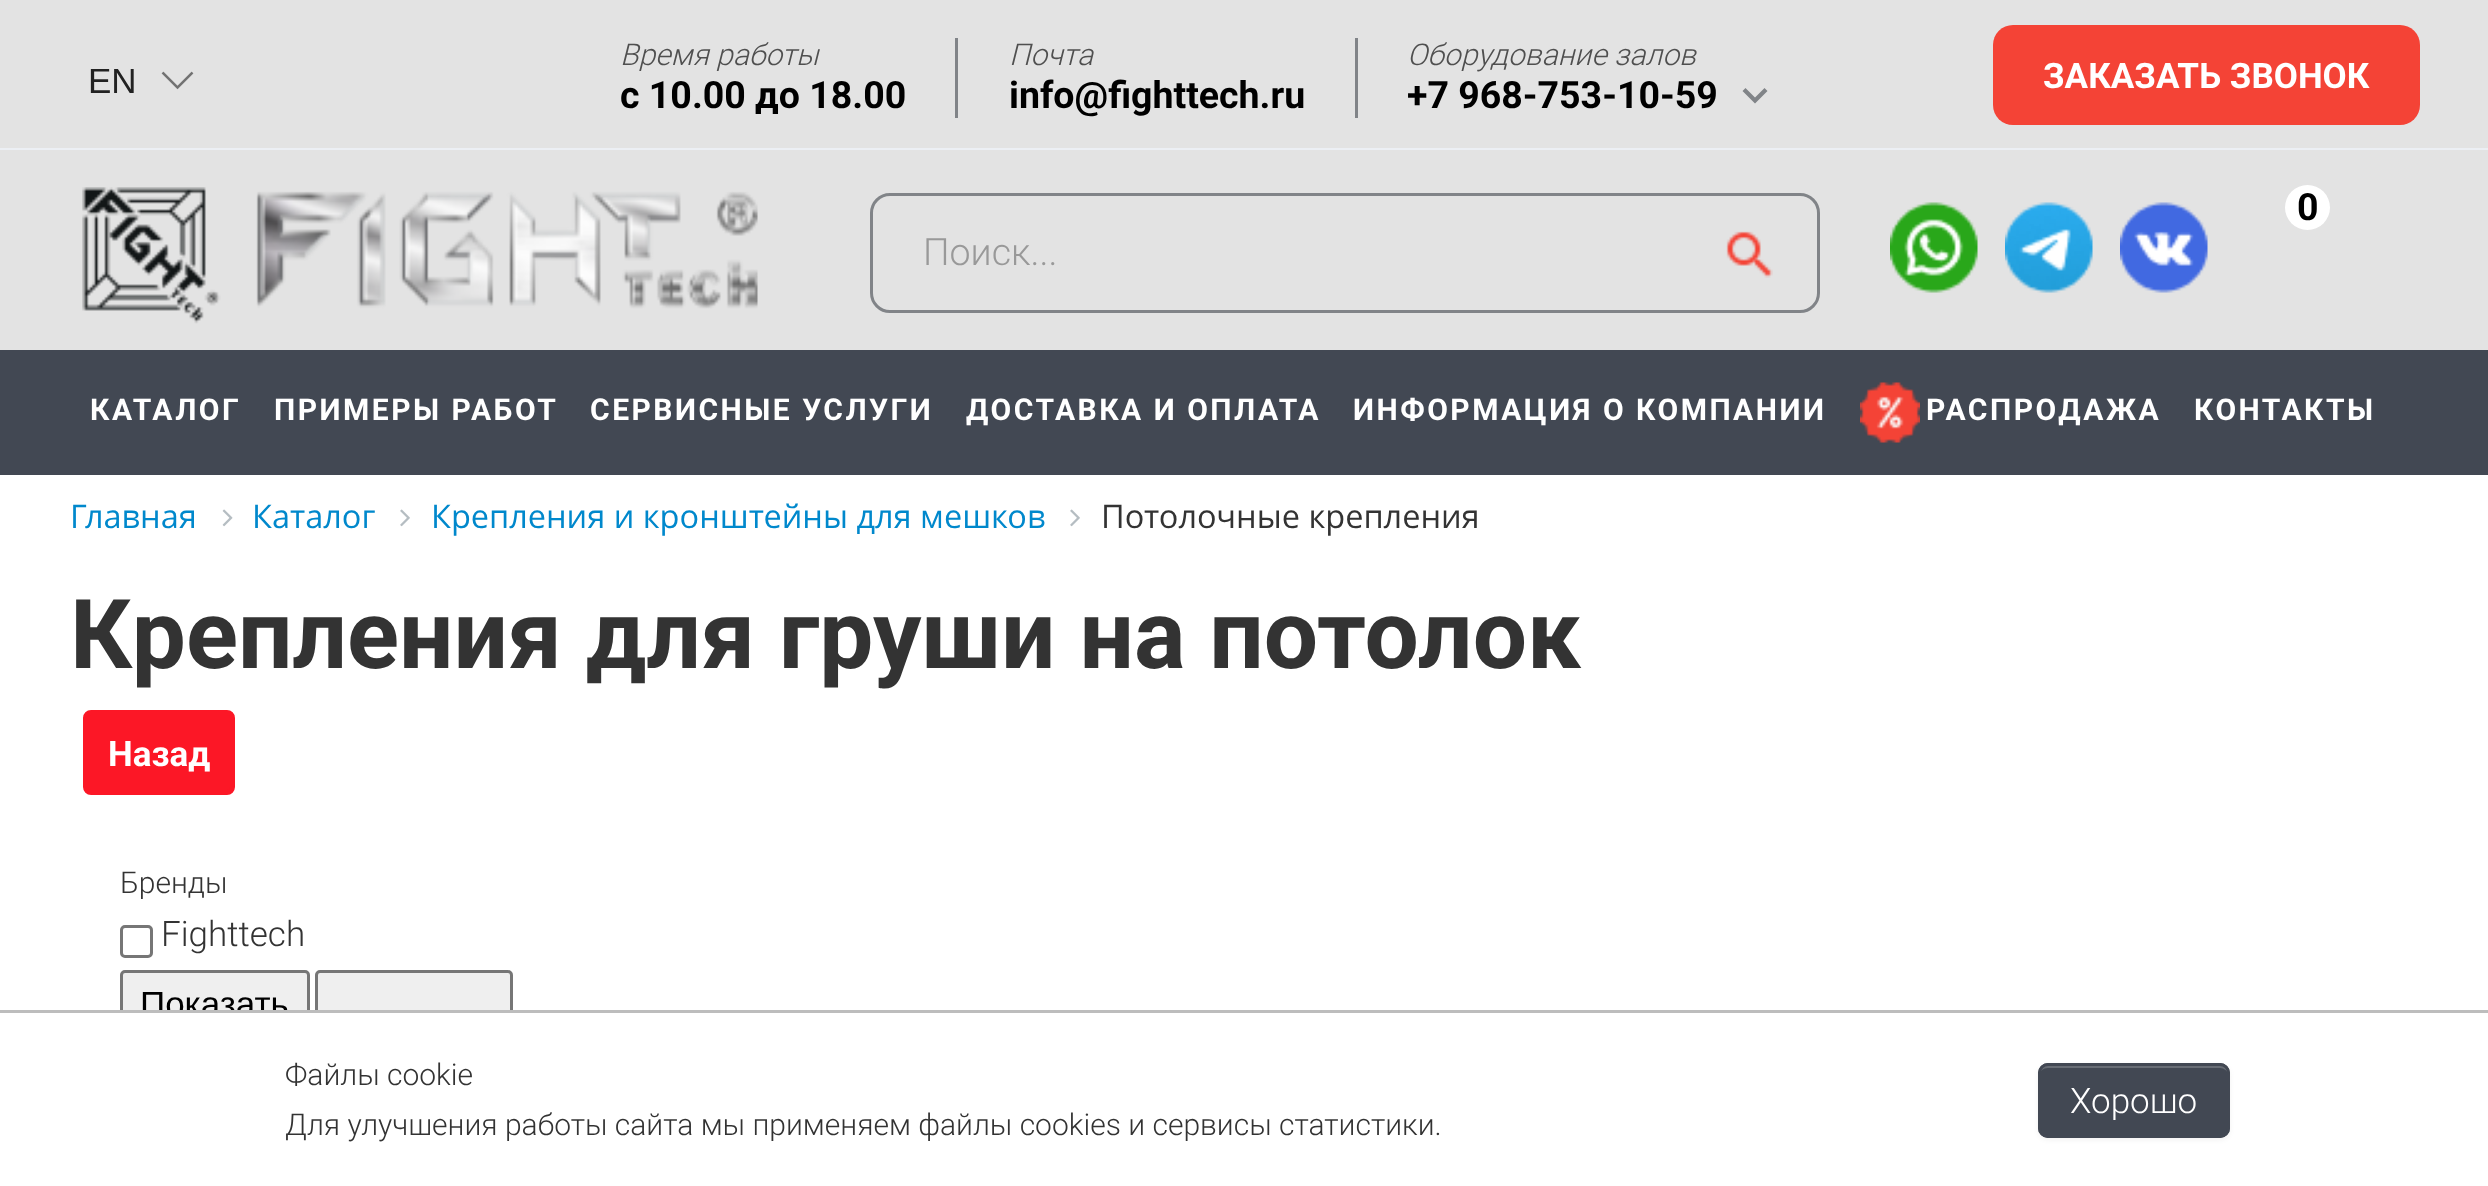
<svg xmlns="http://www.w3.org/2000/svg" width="2488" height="1186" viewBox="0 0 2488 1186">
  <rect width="100%" height="100%" fill="#fff"/>
  <path d="M0 0h2488v148H0z" fill="#e3e3e3"/>
  <path d="M0 148h2488v2H0z" fill="#eceff4"/>
  <image x="161" y="71" width="33" height="19" href="img/1.png"/>
  <path d="M955 38h3v80H955z" fill="#818488"/>
  <path d="M1355 38h3v80H1355z" fill="#818488"/>
  <path d="M1745.5 88L1755 97.5L1764.5 88L1767.5 91L1755 103.5L1742.5 91Z" fill="#818488"/>
  <rect x="1993" y="25" width="427" height="100" rx="20" fill="#f44336"/>
  <path d="M0 150h2488v200H0z" fill="#e3e3e3"/>
  <image x="82" y="187" width="676" height="137" href="img/2.png"/>
  <rect x="871.5" y="194.5" width="947" height="117" rx="18.5" fill="none" stroke="#818488" stroke-width="3"/>
  <image x="1726" y="231" width="47" height="47" href="img/3.png"/>
  <image x="1890" y="202" width="88" height="91" href="img/4.png"/>
  <image x="2005" y="202" width="88" height="91" href="img/5.png"/>
  <image x="2120" y="202" width="88" height="91" href="img/6.png"/>
  <circle cx="2307.5" cy="207.5" r="22.5" fill="#fff"/>
  <path d="M0 350h2488v125H0z" fill="#424853"/>
  <image x="1860" y="382" width="60" height="61" href="img/7.png"/>
  <image x="222" y="509" width="11" height="18" href="img/8.png"/>
  <image x="400" y="509" width="10" height="18" href="img/9.png"/>
  <image x="1070" y="509" width="10" height="18" href="img/9.png"/>
  <rect x="85.5" y="712.5" width="147" height="80" rx="5.5" fill="#fc1726" stroke="#fc1726" stroke-width="5"/>
  <rect x="121.5" y="926.5" width="30" height="30" rx="3.5" fill="none" stroke="#767676" stroke-width="3"/>
  <rect x="121.5" y="971.5" width="187" height="62" rx="3.5" fill="#efefef" stroke="#767676" stroke-width="3"/>
  <rect x="316.5" y="971.5" width="195" height="62" rx="3.5" fill="#efefef" stroke="#767676" stroke-width="3"/>
  <rect x="2038" y="1065" width="192" height="75" rx="10" fill="#0000000d" filter="blur(2.5px)"/>
  <rect x="2038" y="1063" width="192" height="75" rx="10" fill="#424853"/>
  <path d="M2048 1068H2220C2224 1068 2228 1071 2228 1075V1073C2228 1069 2224 1065 2220 1065H2048C2044 1065 2040 1069 2040 1073V1075C2040 1071 2043 1068 2048 1068Z" fill="#686d75"/>
  <rect x="2039.5" y="1064.5" width="189" height="72" rx="8.5" fill="none" stroke="#424853" stroke-width="3"/>
  <text x="88" y="93" font-family="Liberation Sans" font-size="35" fill="#222">EN</text>
  <text x="620" y="65" font-family="Roboto" font-size="30" font-weight="300" font-style="italic" fill="#4f4f4f">Время работы</text>
  <text x="620" y="108" font-family="Roboto" font-size="37.5" font-weight="bold" fill="#000">с 10.00 до 18.00</text>
  <text x="1009" y="65" font-family="Roboto" font-size="30" font-weight="300" font-style="italic" fill="#4f4f4f">Почта</text>
  <text x="1009" y="108" font-family="Roboto" font-size="37.5" font-weight="bold" fill="#000">info@fighttech.ru</text>
  <text x="1407" y="65" font-family="Roboto" font-size="30" font-weight="300" font-style="italic" fill="#4f4f4f">Оборудование залов</text>
  <text x="1407" y="108" font-family="Roboto" font-size="37.5" font-weight="bold" fill="#000">+7 968-753-10-59</text>
  <text x="2043" y="88" font-family="Roboto" font-size="35" font-weight="bold" fill="#fff">ЗАКАЗАТЬ ЗВОНОК</text>
  <text x="923" y="265" font-family="Roboto" font-size="37.5" font-weight="300" fill="#999">Поиск...</text>
  <text x="2297" y="220" font-family="Roboto" font-size="37.5" font-weight="bold" fill="#000">0</text>
  <g font-family="Roboto" font-size="30" font-weight="bold" letter-spacing="2.5" fill="#fff">
    <text x="90" y="420">КАТАЛОГ</text>
    <text x="274" y="420">ПРИМЕРЫ РАБОТ</text>
    <text x="590" y="420">СЕРВИСНЫЕ УСЛУГИ</text>
    <text x="966" y="420">ДОСТАВКА И ОПЛАТА</text>
    <text x="1353" y="420">ИНФОРМАЦИЯ О КОМПАНИИ</text>
    <text x="1926" y="420">РАСПРОДАЖА</text>
    <text x="2194" y="420">КОНТАКТЫ</text>
  </g>
  <g font-family="Open Sans" font-size="32.5" fill="#08c">
    <text x="70" y="528">Главная</text>
    <text x="252" y="528">Каталог</text>
    <text x="431" y="528">Крепления и кронштейны для мешков</text>
  </g>
  <text x="1101" y="528" font-family="Open Sans" font-size="32.5" fill="#333">Потолочные крепления</text>
  <text x="70" y="668" font-family="Roboto" font-size="96.25" font-weight="bold" fill="#333">Крепления для груши на потолок</text>
  <text x="108" y="766" font-family="Roboto" font-size="35" font-weight="bold" fill="#fff">Назад</text>
  <text x="120" y="893" font-family="Roboto" font-size="30" font-weight="300" fill="#333">Бренды</text>
  <text x="161" y="946" font-family="Roboto" font-size="35" font-weight="300" fill="#333">Fighttech</text>
  <text x="140" y="1016" font-family="Liberation Sans" font-size="35" fill="#000">Показать</text>
  <path d="M120 1013h393v22H120z" fill="#fff"/>
  <path d="M0 1010h2488v3H0z" fill="#bdbdbd"/>
  <g font-family="Roboto" font-size="30" font-weight="300" fill="#333">
    <text x="285" y="1085">Файлы cookie</text>
    <text x="285" y="1135">Для улучшения работы сайта мы применяем файлы cookies и сервисы статистики.</text>
  </g>
  <text x="2070" y="1113" font-family="Roboto" font-size="35" font-weight="300" fill="#fff">Хорошо</text>
</svg>
